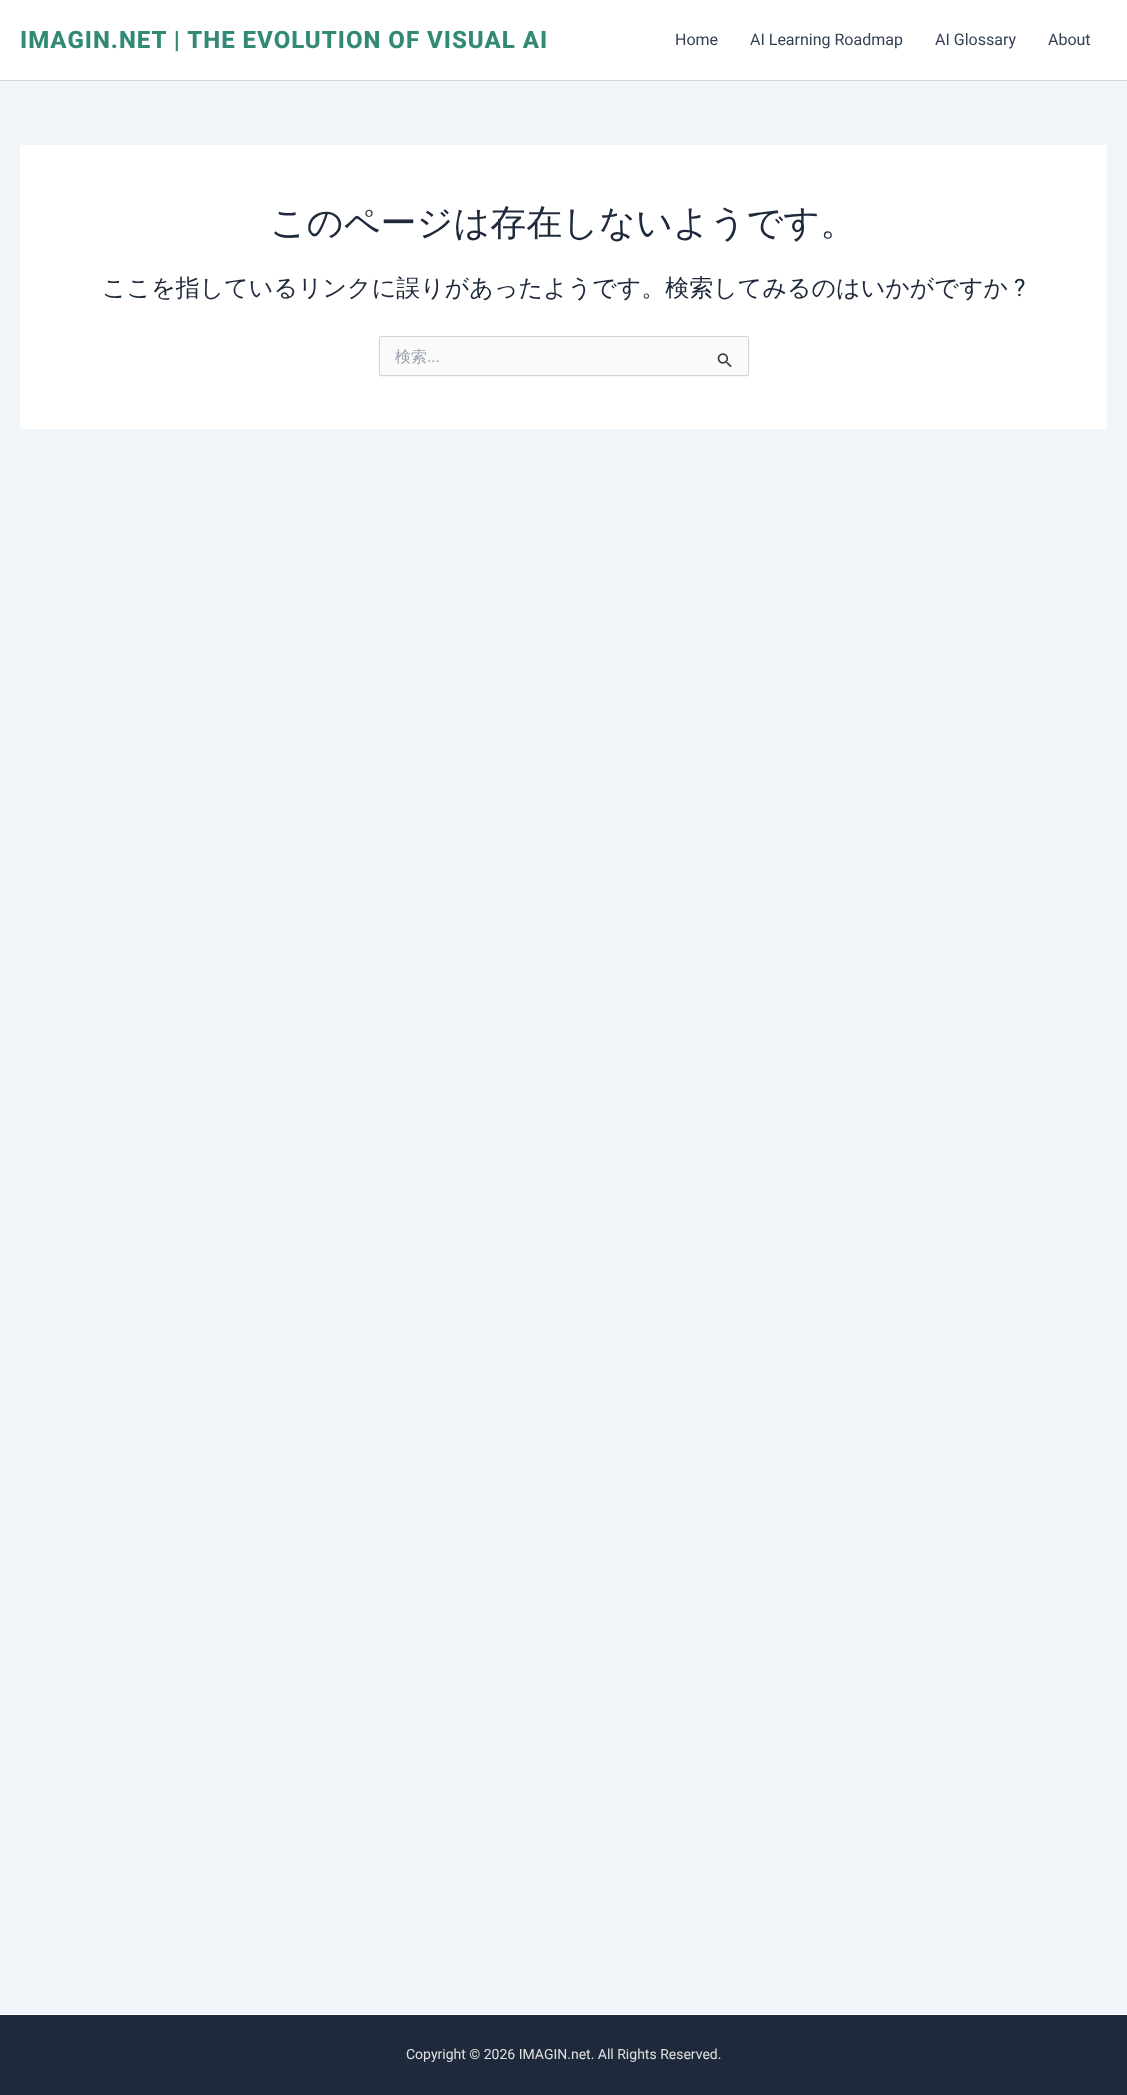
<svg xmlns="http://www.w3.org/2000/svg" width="1127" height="2095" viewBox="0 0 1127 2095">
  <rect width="100%" height="100%" fill="#f0f5fa"/>
  <path d="M0 0h1127v80H0z" fill="#fff"/>
  <path d="M0 80h1127v1H0z" fill="#d1d5db"/>
  <path d="M20 145h1087v284H20z" fill="#fff"/>
  <rect x="379" y="337" width="370" height="40" rx="2" fill="#0000000d" filter="blur(1px)"/>
  <rect x="379.5" y="336.5" width="369" height="39" rx="1.5" fill="#fafafa" stroke="#d1d5db"/>
  <image x="717" y="353" width="15" height="15" href="img/1.png"/>
  <path d="M0 2014h1127v1H0z" fill="#fff"/>
  <path d="M0 2015h1127v80H0z" fill="#1e293b"/>
  <text x="20" y="48" font-family="Roboto" font-size="24" font-weight="800" letter-spacing="1" fill="#328a75">IMAGIN.NET | THE EVOLUTION OF VISUAL AI</text>
  <g font-family="Roboto" font-size="16" fill="#334155">
    <text x="675" y="45">Home</text>
    <text x="750" y="45">AI Learning Roadmap</text>
    <text x="935" y="45">AI Glossary</text>
    <text x="1048" y="45">About</text>
  </g>
  <text x="270" y="235" font-family="WenQuanYi Zen Hei" font-size="36" font-weight="500" fill="#1e293b">このページは存在しないようです。</text>
  <text x="102" y="296" font-family="WenQuanYi Zen Hei" font-size="24" font-weight="500" fill="#1e293b">ここを指しているリンクに誤りがあったようです。検索してみるのはいかがですか</text>
  <text x="1014" y="296" font-family="Roboto" font-size="24" fill="#1e293b">?</text>
  <text x="395" y="362" font-family="WenQuanYi Zen Hei" font-size="16" font-weight="500" fill="#9ca3af">検索</text>
  <text x="427" y="362" font-family="Roboto" font-size="16" fill="#9ca3af">...</text>
  <text x="406" y="2059" font-family="Roboto" font-size="14" fill="#e0e0e0">Copyright © 2026 IMAGIN.net. All Rights Reserved.</text>
</svg>
